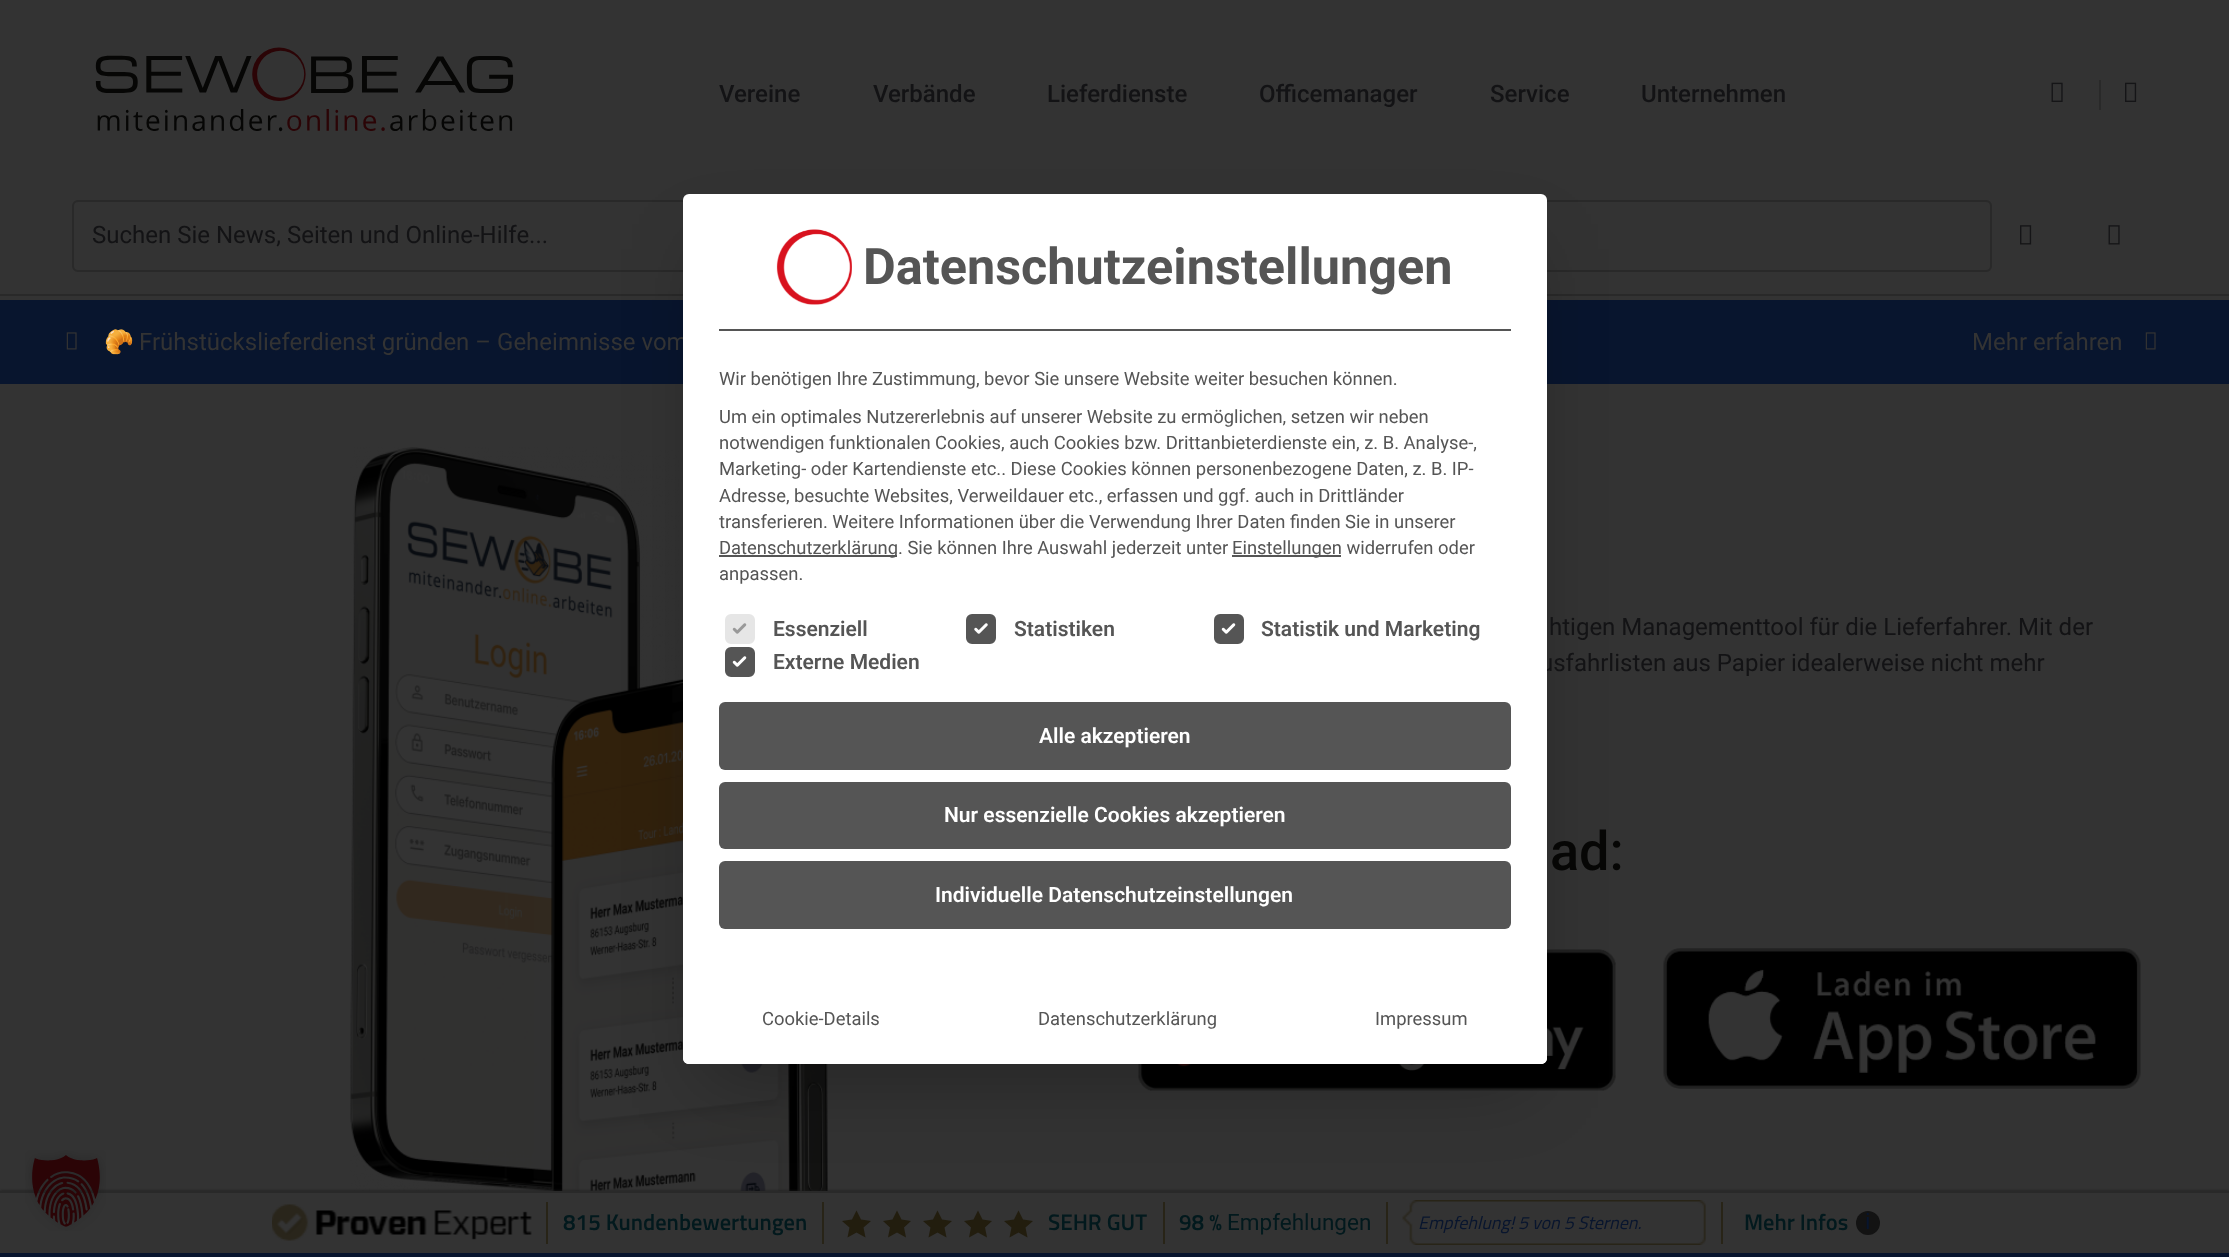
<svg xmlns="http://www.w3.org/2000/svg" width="2229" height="1257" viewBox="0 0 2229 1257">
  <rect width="100%" height="100%" fill="#333"/>
  <image x="95" y="47" width="419" height="85" href="img/1.png"/>
  <image x="2051" y="82" width="12" height="20" href="img/2.png"/>
  <path d="M2099 80h2v30H2099z" fill="#292929"/>
  <image x="2125" y="82" width="12" height="20" href="img/3.png"/>
  <path d="M0 294h2229v2H0z" fill="#292929"/>
  <rect x="73" y="201" width="1918" height="70" rx="5" fill="none" stroke="#292929" stroke-width="2"/>
  <image x="2020" y="225" width="12" height="20" href="img/4.png"/>
  <image x="2108" y="225" width="12" height="20" href="img/5.png"/>
  <path d="M0 300h2229v84H0z" fill="#08152e"/>
  <image x="350" y="447" width="478" height="744" href="img/11.png"/>
  <image x="1138" y="949" width="478" height="142" href="img/12.png"/>
  <path d="M0 1191h2229v66H0z" fill="#1b1b1b" filter="blur(1.5px)"/>
  <path d="M0 1193h2229v60H0z" fill="#333"/>
  <path d="M0 1191h2229v2H0z" fill="#292929"/>
  <path d="M701 249h828v834H701z" fill="#00000040" filter="blur(37.5px)"/>
  <image x="66" y="332" width="11" height="18" href="img/10.png"/>
  <image x="2145" y="332" width="11" height="18" href="img/10.png"/>
  <image x="1663" y="948" width="478" height="141" href="img/13.png"/>
  <image x="25" y="1150" width="81" height="81" href="img/14.png"/>
  <image x="272" y="1204" width="260" height="37" href="img/15.png"/>
  <path d="M546 1202h2v42H546z" fill="#282417"/>
  <path d="M822 1202h2v42H822z" fill="#282417"/>
  <path d="M856.5 1210.5L861 1219.5L871 1221L863.5 1227.5L865.5 1237.5L856.5 1232.5L847.5 1237.5L849.5 1227.5L842 1221L852 1219.5Z" fill="#221d0e"/>
  <path d="M897 1210.5L901.5 1219.5L911 1221L904 1227.5L906 1237.5L897 1232.5L888 1237.5L890 1227.5L883 1221L892.5 1219.5Z" fill="#221d0e"/>
  <path d="M937.5 1210.5L942 1219.5L952 1221L944.5 1227.5L946.5 1237.5L937.5 1232.5L928.5 1237.5L930.5 1227.5L923 1221L933 1219.5Z" fill="#221d0e"/>
  <path d="M978 1210.5L982.5 1219.5L992 1221L985 1227.5L987 1237.5L978 1232.5L969 1237.5L971 1227.5L964 1221L973.5 1219.5Z" fill="#221d0e"/>
  <path d="M1018.5 1210.5L1023 1219.5L1033 1221L1025.5 1227.5L1027.5 1237.5L1018.5 1232.5L1009.5 1237.5L1011.5 1227.5L1004 1221L1014 1219.5Z" fill="#221d0e"/>
  <path d="M1163 1202h2v42H1163z" fill="#282417"/>
  <path d="M1386 1202h2v42H1386z" fill="#282417"/>
  <image x="1402" y="1200" width="304" height="45" href="img/16.png"/>
  <path d="M1721 1202h2v42H1721z" fill="#282417"/>
  <circle cx="1868" cy="1223" r="12" fill="#131313"/>
  <path d="M0 1253h2229v4H0z" fill="#08152e"/>
  <g font-family="Roboto" font-size="24" font-weight="500" fill="#131315">
    <text x="719" y="102">Vereine</text>
    <text x="873" y="102">Verbände</text>
    <text x="1047" y="102">Lieferdienste</text>
    <text x="1259" y="102">Officemanager</text>
    <text x="1490" y="102">Service</text>
    <text x="1641" y="102">Unternehmen</text>
  </g>
  <text x="92" y="243" font-family="Roboto" font-size="24" fill="#131315">Suchen Sie News, Seiten und Online-Hilfe...</text>
  <text x="104" y="350" font-family="Noto Color Emoji" font-size="24" fill="#333">🥐</text>
  <g font-family="Roboto" font-size="24" fill="#333">
    <text x="139" y="350">Frühstückslieferdienst gründen – Geheimnisse vom</text>
    <text x="1972" y="350">Mehr erfahren</text>
  </g>
  <g font-family="Roboto" font-size="24" fill="#131315">
    <text x="1549" y="635">htigen Managementtool für die Lieferfahrer. Mit der</text>
    <text x="1540" y="671">usfahrlisten aus Papier idealerweise nicht mehr</text>
  </g>
  <rect x="683" y="194" width="864" height="870" rx="6" fill="#fff"/>
  <rect x="726.5" y="648.5" width="27" height="27" rx="4.5" fill="#555" stroke="#555" stroke-width="3"/>
  <image x="732" y="656" width="15" height="11" href="img/9.png"/>
  <text x="773" y="669" font-family="Roboto" font-size="21" font-weight="600" fill="#555">Externe Medien</text>
  <rect x="1215.5" y="615.5" width="27" height="27" rx="4.5" fill="#555" stroke="#555" stroke-width="3"/>
  <image x="1221" y="623" width="15" height="11" href="img/9.png"/>
  <text x="1261" y="636" font-family="Roboto" font-size="21" font-weight="600" fill="#555">Statistik und Marketing</text>
  <rect x="967.5" y="615.5" width="27" height="27" rx="4.5" fill="#555" stroke="#555" stroke-width="3"/>
  <image x="974" y="623" width="14" height="11" href="img/8.png"/>
  <text x="1014" y="636" font-family="Roboto" font-size="21" font-weight="600" fill="#555">Statistiken</text>
  <rect x="726.5" y="615.5" width="27" height="27" rx="4.5" fill="#e6e6e6" stroke="#e6e6e6" stroke-width="3"/>
  <image x="732" y="623" width="15" height="11" href="img/7.png"/>
  <text x="773" y="636" font-family="Roboto" font-size="21" font-weight="600" fill="#555">Essenziell</text>
  <rect x="719" y="861" width="792" height="68" rx="6" fill="#555"/>
  <text x="935" y="902" font-family="Roboto" font-size="21" font-weight="600" fill="#fff">Individuelle Datenschutzeinstellungen</text>
  <rect x="719" y="782" width="792" height="67" rx="6" fill="#555"/>
  <text x="944" y="822" font-family="Roboto" font-size="21" font-weight="600" fill="#fff">Nur essenzielle Cookies akzeptieren</text>
  <rect x="719" y="702" width="792" height="68" rx="6" fill="#555"/>
  <text x="1039" y="743" font-family="Roboto" font-size="21" font-weight="600" fill="#fff">Alle akzeptieren</text>
  <text x="719" y="580" font-family="Roboto" font-size="18.4" fill="#555">anpassen.</text>
  <path d="M1232 555h109v2H1232z" fill="#555"/>
  <text x="1232" y="554" font-family="Roboto" font-size="18.4" fill="#555">Einstellungen widerrufen oder</text>
  <path d="M719 555h178v2H719z" fill="#555"/>
  <g font-family="Roboto" font-size="18.4" fill="#555">
    <text x="719" y="554">Datenschutzerklärung. Sie können Ihre Auswahl jederzeit unter</text>
    <text x="719" y="528">transferieren. Weitere Informationen über die Verwendung Ihrer Daten finden Sie in unserer</text>
    <text x="719" y="502">Adresse, besuchte Websites, Verweildauer etc., erfassen und ggf. auch in Drittländer</text>
    <text x="719" y="475">Marketing- oder Kartendienste etc.. Diese Cookies können personenbezogene Daten, z. B. IP-</text>
    <text x="719" y="449">notwendigen funktionalen Cookies, auch Cookies bzw. Drittanbieterdienste ein, z. B. Analyse-,</text>
    <text x="719" y="423">Um ein optimales Nutzererlebnis auf unserer Website zu ermöglichen, setzen wir neben</text>
    <text x="719" y="385">Wir benötigen Ihre Zustimmung, bevor Sie unsere Website weiter besuchen können.</text>
  </g>
  <text x="863" y="284" font-family="Roboto" font-size="50.4" font-weight="bold" fill="#555">Datenschutzeinstellungen</text>
  <image x="776" y="229" width="76" height="76" href="img/6.png"/>
  <path d="M719 329h792v2H719z" fill="#555"/>
  <path d="M683 977H1547V1058C1547 1061.5 1544.5 1064 1541 1064H689C685.5 1064 683 1061.5 683 1058Z" fill="#fff"/>
  <g font-family="Roboto" font-size="18.4" fill="#555">
    <text x="1375" y="1025">Impressum</text>
    <text x="1038" y="1025">Datenschutzerklärung</text>
    <text x="762" y="1025">Cookie-Details</text>
  </g>
  <text x="1550" y="870" font-family="Roboto" font-size="54" font-weight="500" fill="#060605">ad:</text>
  <g font-family="Titillium Web" font-size="22.5" font-weight="600" fill="#02191d">
    <text x="563" y="1230">815 Kundenbewertungen</text>
    <text x="1048" y="1230">SEHR GUT</text>
    <text x="1179" y="1230">98 %</text>
  </g>
  <text x="1227" y="1230" font-family="Roboto" font-size="22.5" fill="#02191d">Empfehlungen</text>
  <text x="1418" y="1229" font-family="Titillium Web" font-size="18" font-style="italic" fill="#08152e">Empfehlung! 5 von 5 Sternen.</text>
  <text x="1744" y="1230" font-family="Titillium Web" font-size="22.5" font-weight="600" fill="#02191d">Mehr Infos</text>
  <text x="1865" y="1229" font-family="Roboto" font-size="22.5" fill="#08152e">i</text>
</svg>
